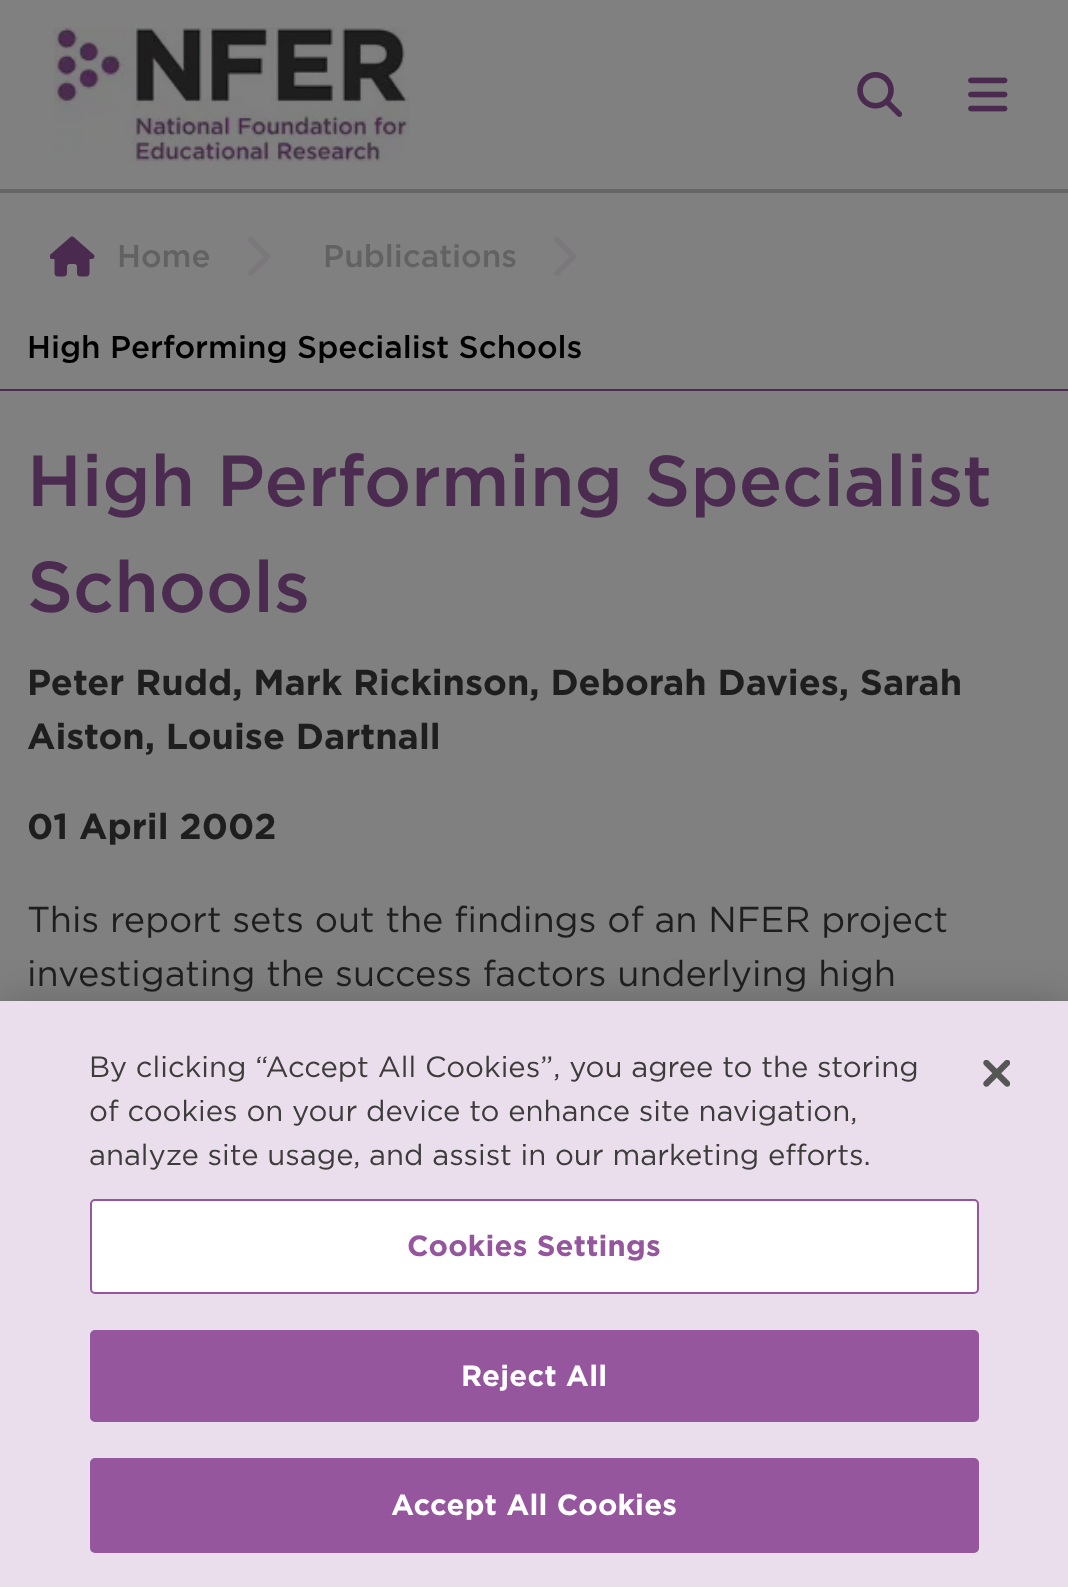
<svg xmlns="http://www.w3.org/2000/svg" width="1068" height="1587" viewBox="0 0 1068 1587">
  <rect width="100%" height="100%" fill="#808080"/>
  <image x="54" y="27" width="356" height="135" href="img/1.png"/>
  <image x="857" y="72" width="45" height="45" href="img/2.png"/>
  <image x="968" y="77" width="40" height="35" href="img/3.png"/>
  <path d="M0 189h1068v4H0z" fill="#666"/>
  <path d="M0 389h1068v2H0z" fill="#4b2b4f"/>
  <image x="50" y="236" width="45" height="41" href="img/4.png"/>
  <image x="248" y="237" width="23" height="39" href="img/5.png"/>
  <image x="554" y="237" width="23" height="39" href="img/5.png"/>
  <path d="M0 1001h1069v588H0z" fill="#00000033" filter="blur(20px)"/>
  <path d="M0 1001h1068v586H0z" fill="#eaddec"/>
  <rect x="91" y="1200" width="887" height="93" rx="4" fill="#fff" stroke="#95569e" stroke-width="2"/>
  <rect x="91" y="1331" width="887" height="90" rx="4" fill="#95569e" stroke="#95569e" stroke-width="2"/>
  <rect x="91" y="1459" width="887" height="93" rx="4" fill="#95569e" stroke="#95569e" stroke-width="2"/>
  <image x="983" y="1060" width="27" height="27" href="img/6.png"/>
  <g font-family="Gotham" font-size="31.5" font-weight="500" fill="#636262">
    <text x="117" y="267">Home</text>
    <text x="323" y="267">Publications</text>
  </g>
  <text x="27" y="358" font-family="Gotham" font-size="31.5" font-weight="500" fill="#000">High Performing Specialist Schools</text>
  <g font-family="Gotham" font-size="72" font-weight="500" fill="#4b2b4f">
    <text x="27" y="506">High Performing Specialist</text>
    <text x="27" y="612">Schools</text>
  </g>
  <g font-family="Gotham" font-size="36" font-weight="bold" fill="#1e1e1e">
    <text x="27" y="695">Peter Rudd, Mark Rickinson, Deborah Davies, Sarah</text>
    <text x="27" y="749">Aiston, Louise Dartnall</text>
    <text x="27" y="839">01 April 2002</text>
  </g>
  <g font-family="Gotham" font-size="36" fill="#1e1e1e">
    <text x="27" y="932">This report sets out the findings of an NFER project</text>
    <text x="27" y="986">investigating the success factors underlying high</text>
  </g>
  <g font-family="Gotham" font-size="29.25" fill="#3c3c3b">
    <text x="89" y="1077">By clicking “Accept All Cookies”, you agree to the storing</text>
    <text x="89" y="1121">of cookies on your device to enhance site navigation,</text>
    <text x="89" y="1165">analyze site usage, and assist in our marketing efforts.</text>
  </g>
  <text x="407" y="1256" font-family="Gotham" font-size="29.25" font-weight="bold" letter-spacing="0.25" fill="#95569e">Cookies Settings</text>
  <g font-family="Gotham" font-size="29.25" font-weight="bold" letter-spacing="0.25" fill="#fff">
    <text x="461" y="1386">Reject All</text>
    <text x="391" y="1515">Accept All Cookies</text>
  </g>
</svg>
